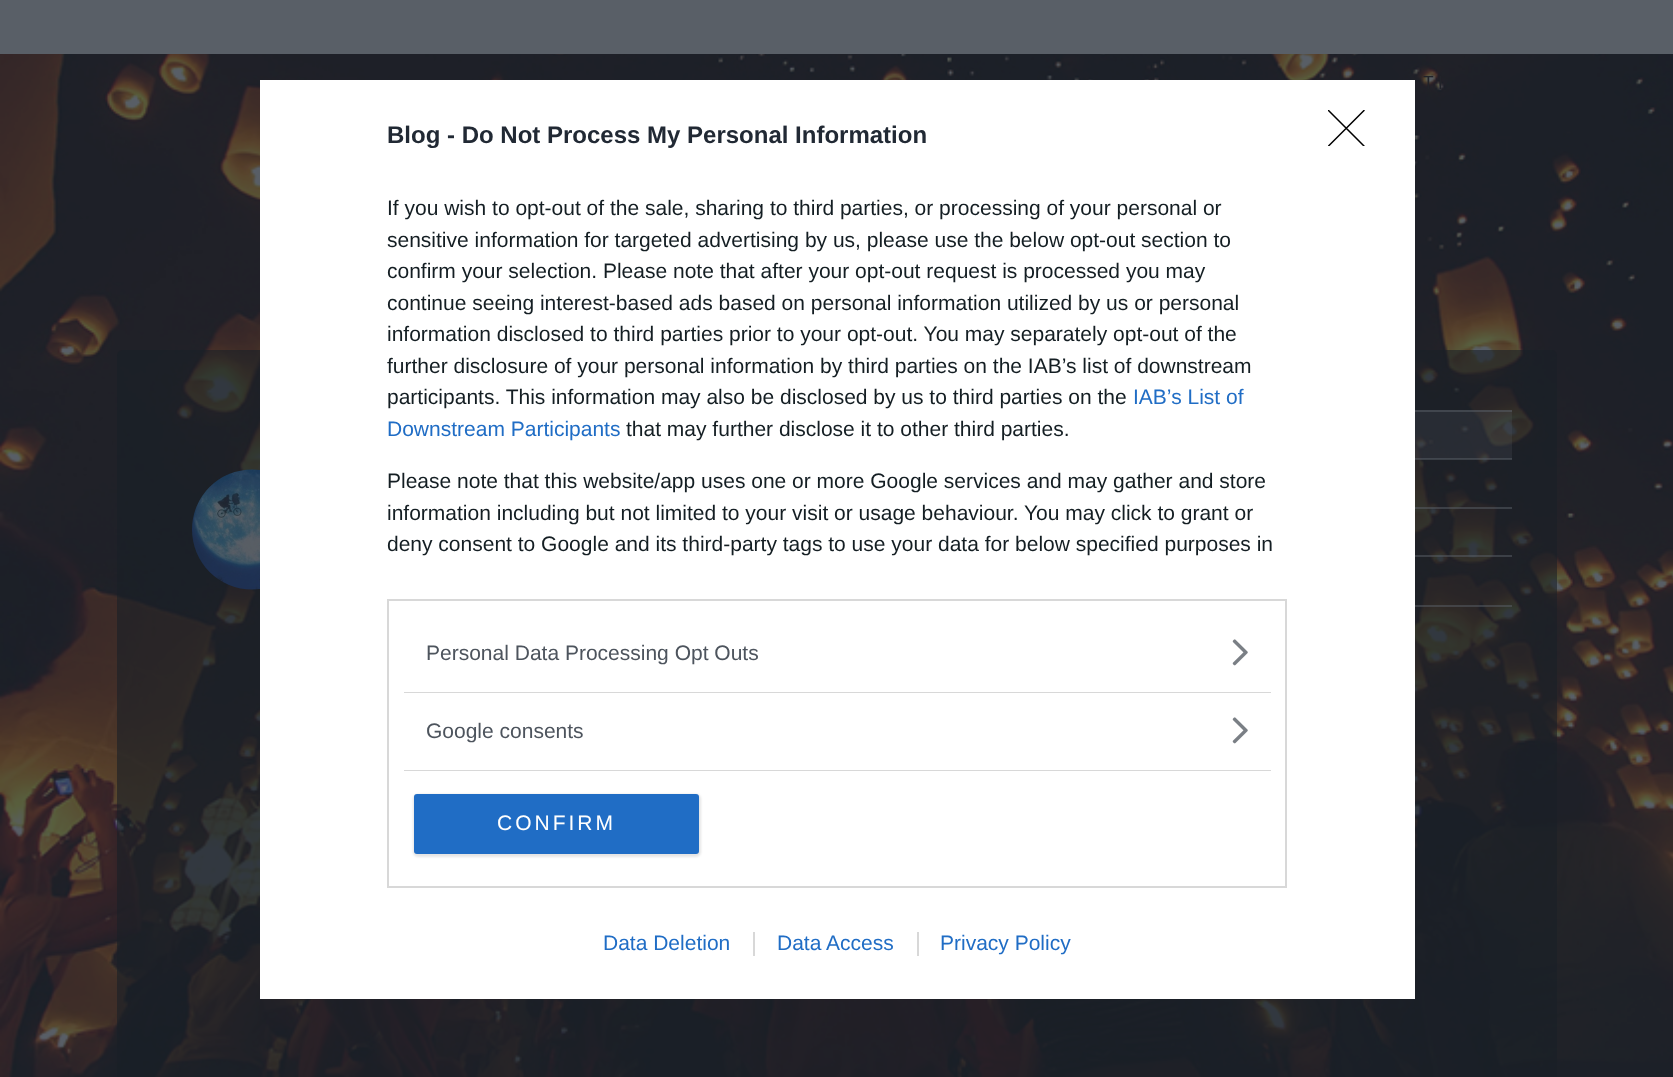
<svg xmlns="http://www.w3.org/2000/svg" width="1673" height="1077" viewBox="0 0 1673 1077">
  <defs>
    <clipPath id="clip1"><path d="M1328 110h37v36H1328z"/></clipPath>
  </defs>
  <rect width="100%" height="100%" fill="#fff"/>
  <image x="0" y="54" width="1673" height="1023" href="img/1.png"/>
  <path d="M0 0h1673v54H0z" fill="#595f67"/>
  <path d="M123 350H1551C1554.5 350 1557 352.5 1557 356V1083H117V356C117 352.5 119.5 350 123 350Z" fill="#191f2799"/>
  <path d="M260 80h1155v919H260z" fill="#fff"/>
  <path d="M388 600h898v287H388z" fill="none" stroke="#d8d8d8" stroke-width="2"/>
  <path d="M404 692h867v1H404z" fill="#d8d8d8"/>
  <image x="1232" y="639" width="16" height="27" href="img/2.png"/>
  <path d="M404 770h867v1H404z" fill="#d8d8d8"/>
  <image x="1232" y="717" width="16" height="27" href="img/2.png"/>
  <rect x="413" y="794" width="288" height="63" rx="5" fill="#0000001a" filter="blur(1px)"/>
  <rect x="414" y="794" width="285" height="60" rx="3" fill="#206dc5"/>
  <g clip-path="url(#clip1)">
    <path d="M1328.5 110.5L1364 146M1364 110.5L1328.5 146" fill="none" stroke="#000" stroke-width="1.5" stroke-linecap="round" stroke-linejoin="round"/>
  </g>
  <path d="M753 932h2v24H753z" fill="#d8d8d8"/>
  <path d="M917 932h2v24H917z" fill="#d8d8d8"/>
  <image x="192" y="469" width="68" height="121" href="img/3.png"/>
  <path d="M1415 410h97v49H1415z" fill="#595f6733"/>
  <path d="M1415 410h97v2H1415z" fill="#595f6780"/>
  <path d="M1415 458h97v2H1415z" fill="#595f6780"/>
  <path d="M1415 507h97v2H1415z" fill="#595f6780"/>
  <path d="M1415 555h97v2H1415z" fill="#595f6780"/>
  <path d="M1415 605h97v2H1415z" fill="#595f6780"/>
  <text x="1423" y="89" font-family="Source Sans Pro" font-size="20" fill="#212329">T I</text>
  <text x="387" y="143" font-family="Liberation Sans" font-size="24" font-weight="bold" fill="#212934">Blog - Do Not Process My Personal Information</text>
  <g font-family="Liberation Sans" font-size="21" fill="#141e23">
    <text x="387" y="215">If you wish to opt-out of the sale, sharing to third parties, or processing of your personal or</text>
    <text x="387" y="247">sensitive information for targeted advertising by us, please use the below opt-out section to</text>
    <text x="387" y="278">confirm your selection. Please note that after your opt-out request is processed you may</text>
    <text x="387" y="310">continue seeing interest-based ads based on personal information utilized by us or personal</text>
    <text x="387" y="341">information disclosed to third parties prior to your opt-out. You may separately opt-out of the</text>
    <text x="387" y="373">further disclosure of your personal information by third parties on the IAB’s list of downstream</text>
    <text x="387" y="404">participants. This information may also be disclosed by us to third parties on the</text>
  </g>
  <g font-family="Liberation Sans" font-size="21" fill="#206dc5">
    <text x="1133" y="404">IAB’s List of</text>
    <text x="387" y="436">Downstream Participants</text>
  </g>
  <g font-family="Liberation Sans" font-size="21" fill="#141e23">
    <text x="626" y="436">that may further disclose it to other third parties.</text>
    <text x="387" y="488">Please note that this website/app uses one or more Google services and may gather and store</text>
    <text x="387" y="520">information including but not limited to your visit or usage behaviour. You may click to grant or</text>
    <text x="387" y="551">deny consent to Google and its third-party tags to use your data for below specified purposes in</text>
  </g>
  <g font-family="Liberation Sans" font-size="21" fill="#4d545d">
    <text x="426" y="660">Personal Data Processing Opt Outs</text>
    <text x="426" y="738">Google consents</text>
  </g>
  <text x="497" y="830" font-family="Liberation Sans" font-size="21" letter-spacing="3" fill="#fff">CONFIRM</text>
  <g font-family="Liberation Sans" font-size="21" fill="#206dc5">
    <text x="603" y="950">Data Deletion</text>
    <text x="777" y="950">Data Access</text>
    <text x="940" y="950">Privacy Policy</text>
  </g>
</svg>
